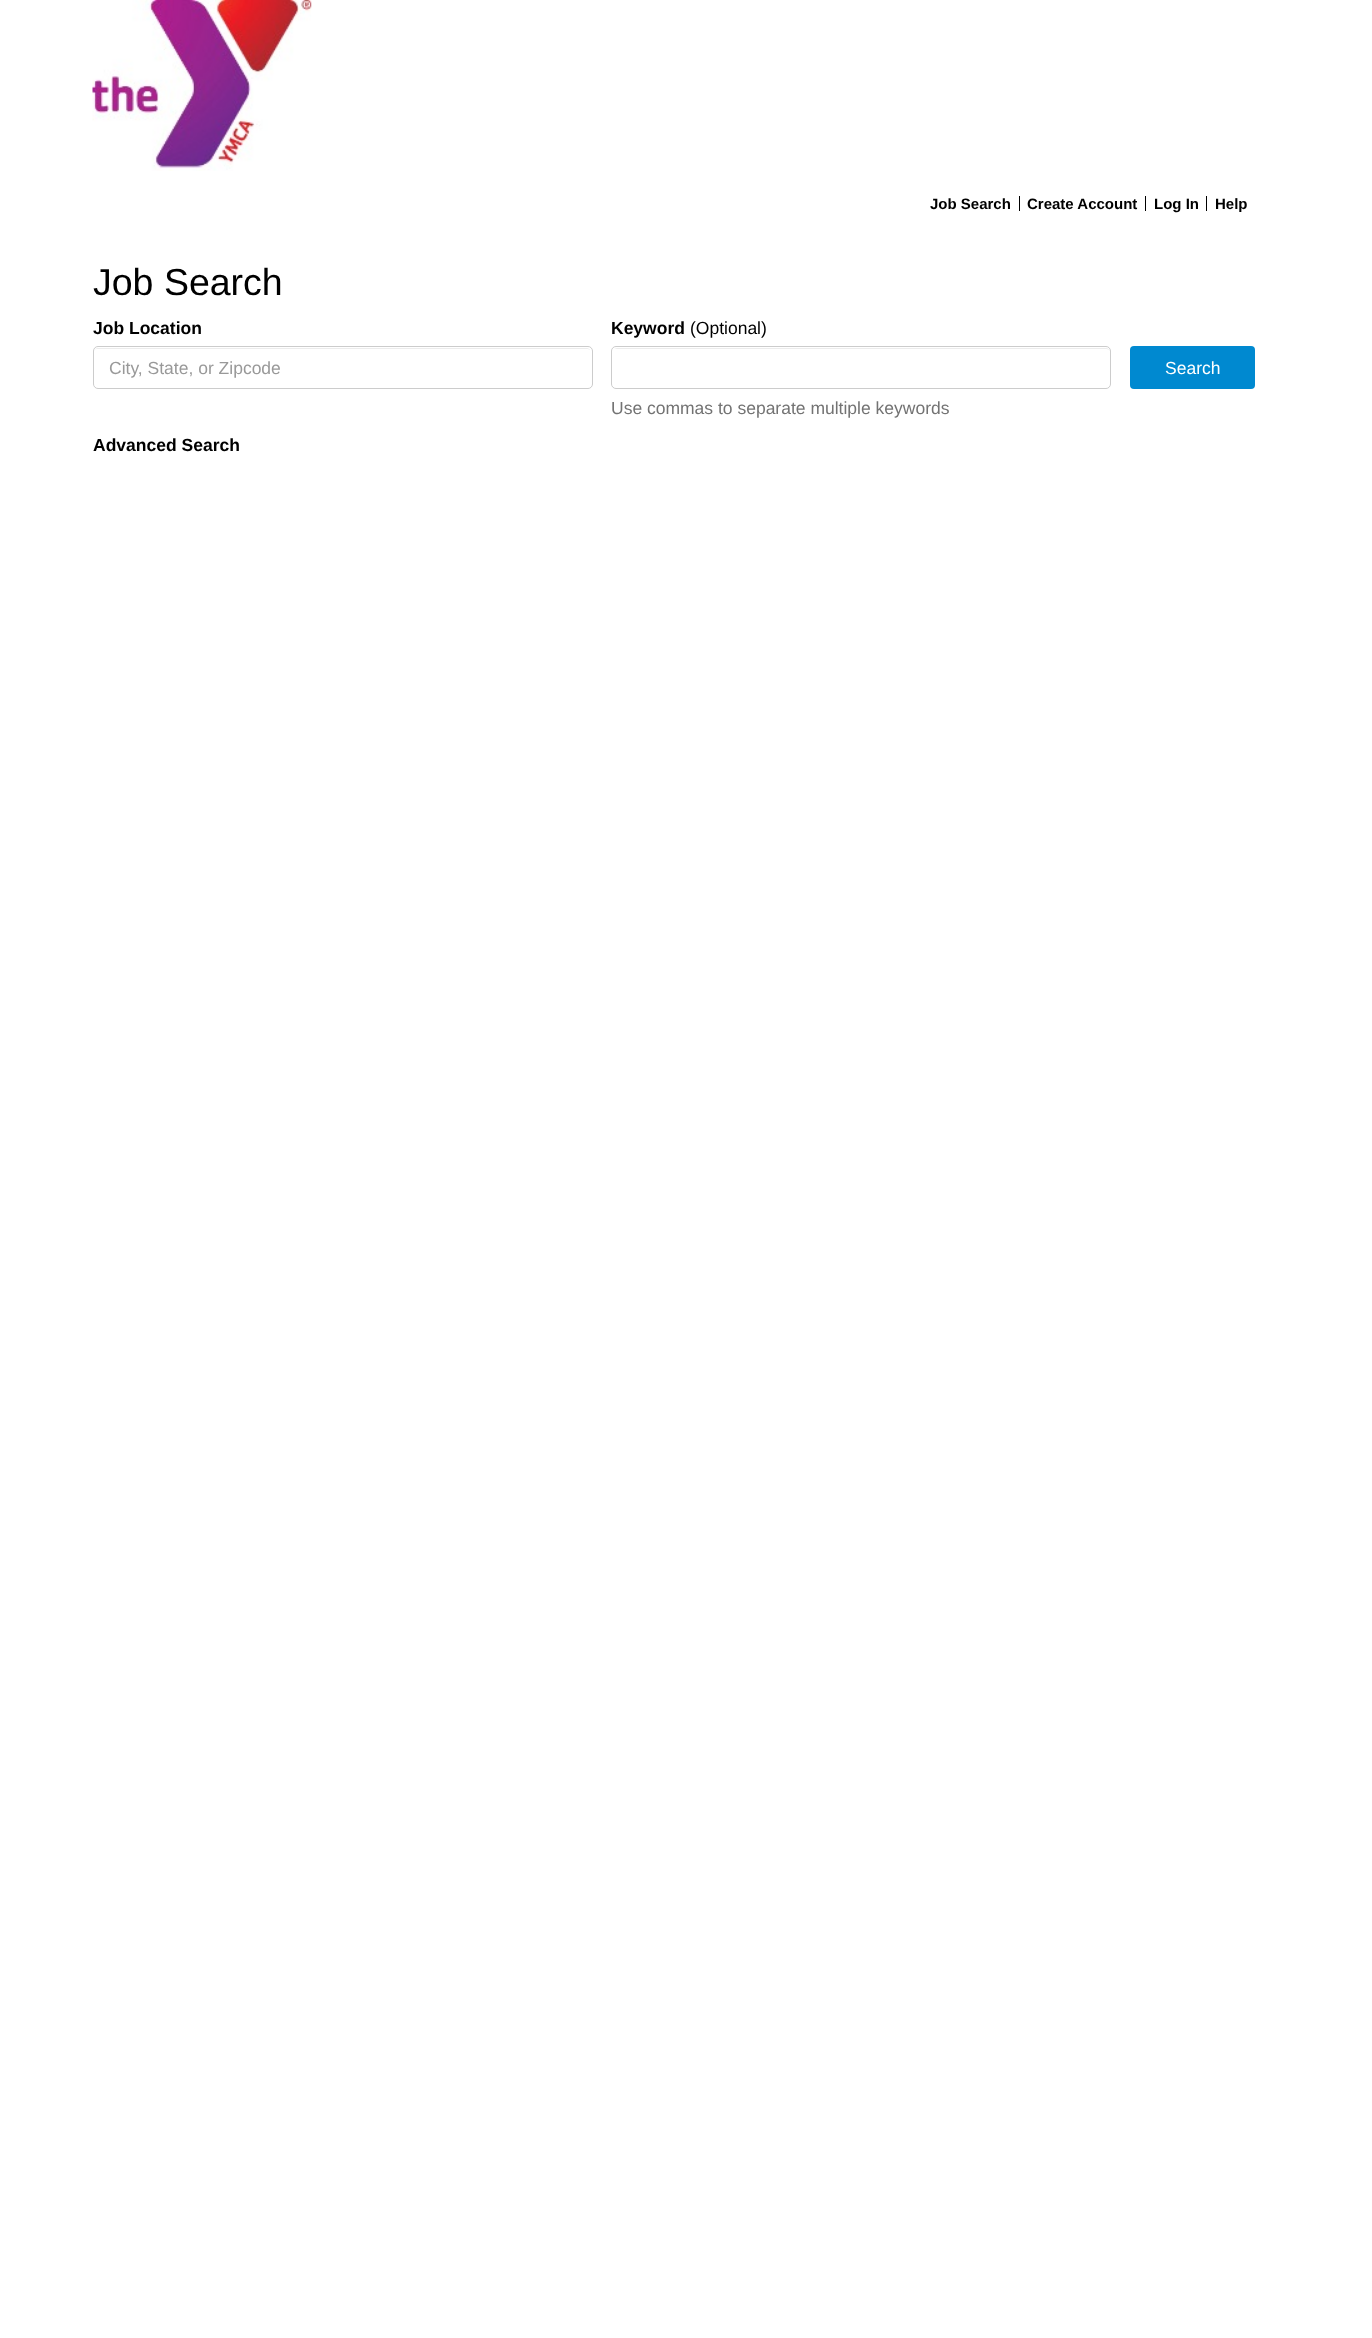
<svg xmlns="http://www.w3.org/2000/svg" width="1372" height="2338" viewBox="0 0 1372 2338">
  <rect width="100%" height="100%" fill="#fff"/>
  <image x="92" y="0" width="220" height="171" href="img/1.png"/>
  <path d="M1019 196h1v15H1019z" fill="#000"/>
  <path d="M1145 196h1v15H1145z" fill="#000"/>
  <path d="M1206 196h1v15H1206z" fill="#000"/>
  <path d="M98 349H588L590 350C590 349 588 348 587 348H98C96 348 95 349 94 350C95 349 96 349 98 349Z" fill="#ececec"/>
  <rect x="93.5" y="346.5" width="499" height="42" rx="4.5" fill="none" stroke="#ccc"/>
  <path d="M616 349H1106C1108 349 1110 350 1110 352C1110 350 1108 348 1106 348H617C616 348 615 349 614 349Z" fill="#ececec"/>
  <rect x="611.5" y="346.5" width="499" height="42" rx="4.5" fill="none" stroke="#ccc"/>
  <rect x="1130" y="346" width="125" height="43" rx="4" fill="#0089d0"/>
  <g font-family="Liberation Sans" font-size="15" font-weight="bold" fill="#000">
    <text x="930" y="209">Job Search</text>
    <text x="1027" y="209">Create Account</text>
    <text x="1154" y="209">Log In</text>
    <text x="1215" y="209">Help</text>
  </g>
  <text x="93" y="295" font-family="Liberation Sans" font-size="37.5" fill="#000">Job Search</text>
  <text x="93" y="334" font-family="Liberation Sans" font-size="17.5" font-weight="bold" fill="#000">Job Location</text>
  <text x="109" y="374" font-family="Liberation Sans" font-size="17.5" fill="#999">City, State, or Zipcode</text>
  <text x="611" y="334" font-family="Liberation Sans" font-size="17.5" font-weight="bold" fill="#000">Keyword</text>
  <text x="690" y="334" font-family="Liberation Sans" font-size="17.5" fill="#000">(Optional)</text>
  <text x="611" y="414" font-family="Liberation Sans" font-size="17.5" fill="#737373">Use commas to separate multiple keywords</text>
  <text x="1165" y="374" font-family="Liberation Sans" font-size="17.5" fill="#fff">Search</text>
  <text x="93" y="451" font-family="Liberation Sans" font-size="17.5" font-weight="bold" fill="#000">Advanced Search</text>
</svg>
